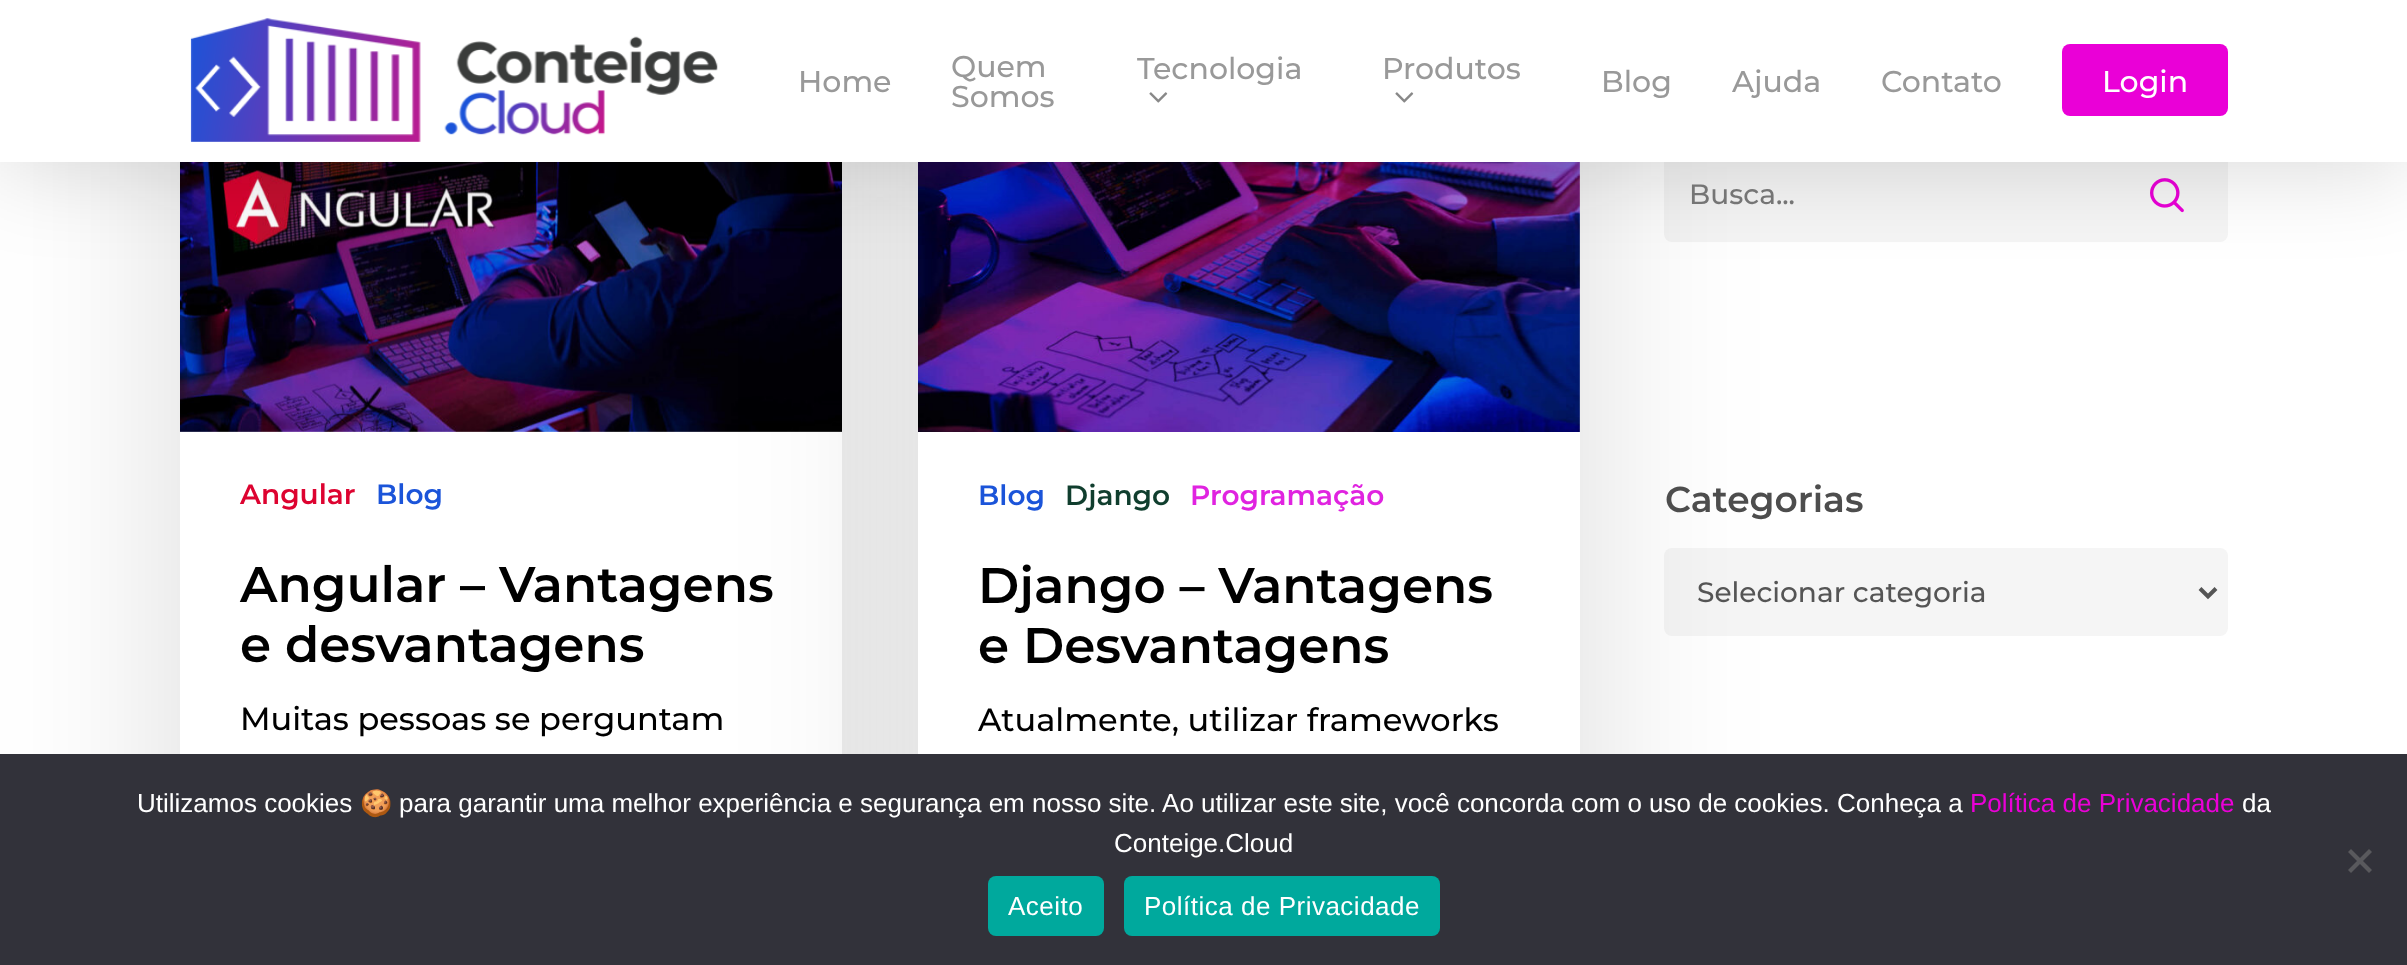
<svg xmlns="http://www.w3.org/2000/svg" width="2407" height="965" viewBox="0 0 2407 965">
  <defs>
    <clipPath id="clip1"><path d="M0 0H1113V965H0ZM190-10H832C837.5-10 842-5.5 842 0V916C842 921.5 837.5 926 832 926H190C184.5 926 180 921.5 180 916V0C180-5.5 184.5-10 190-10Z" clip-rule="evenodd"/></clipPath>
  </defs>
  <rect width="100%" height="100%" fill="#fff"/>
  <g clip-path="url(#clip1)">
    <rect x="180" y="50" width="662" height="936" rx="10" fill="#00000024" filter="blur(90px)"/>
  </g>
  <image x="180" y="162" width="662" height="270" href="img/3.png"/>
  <rect x="1664" y="146" width="564" height="96" rx="8" fill="#f5f5f5"/>
  <rect x="1664" y="548" width="564" height="88" rx="8" fill="#f5f5f5"/>
  <rect x="918" y="50" width="662" height="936" rx="10" fill="#00000024" filter="blur(90px)"/>
  <image x="918" y="162" width="662" height="270" href="img/4.png"/>
  <image x="2150" y="178" width="34" height="35" href="img/5.png"/>
  <path d="M0 6h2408v162H0z" fill="#00000026" filter="blur(45px)"/>
  <path d="M0 0h2407v162H0z" fill="#fff"/>
  <image x="190" y="18" width="528" height="124" href="img/1.png"/>
  <image x="1149" y="92" width="19" height="11" href="img/2.png"/>
  <image x="1395" y="92" width="19" height="11" href="img/2.png"/>
  <rect x="2062" y="44" width="166" height="72" rx="8" fill="#ea00d7"/>
  <path d="M918 432h662v322H918z" fill="#fff"/>
  <path d="M2200 588.5L2208 596.5L2216 588.5" fill="none" stroke="#555" stroke-width="4"/>
  <path d="M0 754h2407v211H0z" fill="#32323a"/>
  <path d="M2369 849L2372 852L2351 873L2348 870Z" fill="#59595d"/>
  <path d="M2348 852L2351 849L2372 870L2369 873Z" fill="#59595d"/>
  <rect x="988" y="876" width="116" height="60" rx="8" fill="#00a99d"/>
  <rect x="1124" y="876" width="316" height="60" rx="8" fill="#00a99d"/>
  <g font-family="Montserrat" font-size="30" font-weight="500" fill="#999">
    <text x="798" y="92">Home</text>
    <text x="951" y="77">Quem</text>
    <text x="951" y="107">Somos</text>
    <text x="1137" y="79">Tecnologia</text>
    <text x="1382" y="79">Produtos</text>
    <text x="1601" y="92">Blog</text>
    <text x="1732" y="92">Ajuda</text>
    <text x="1881" y="92">Contato</text>
  </g>
  <text x="2102" y="92" font-family="Montserrat" font-size="30" font-weight="500" fill="#fff">Login</text>
  <text x="240" y="504" font-family="Montserrat" font-size="28" font-weight="600" fill="#dd0330">Angular</text>
  <text x="376" y="504" font-family="Montserrat" font-size="28" font-weight="600" fill="#1b54d9">Blog</text>
  <g font-family="Montserrat" font-size="50" font-weight="600" fill="#000">
    <text x="240" y="602">Angular – Vantagens</text>
    <text x="240" y="662">e desvantagens</text>
  </g>
  <text x="240" y="730" font-family="Montserrat" font-size="32" font-weight="500" fill="#000">Muitas pessoas se perguntam</text>
  <text x="978" y="505" font-family="Montserrat" font-size="28" font-weight="600" fill="#1b54d9">Blog</text>
  <text x="1065" y="505" font-family="Montserrat" font-size="28" font-weight="600" fill="#103e2e">Django</text>
  <text x="1190" y="505" font-family="Montserrat" font-size="28" font-weight="600" fill="#e023e0">Programação</text>
  <g font-family="Montserrat" font-size="50" font-weight="600" fill="#000">
    <text x="978" y="603">Django – Vantagens</text>
    <text x="978" y="663">e Desvantagens</text>
  </g>
  <text x="978" y="731" font-family="Montserrat" font-size="32" font-weight="500" fill="#000">Atualmente, utilizar frameworks</text>
  <text x="1689" y="204" font-family="Montserrat" font-size="28" font-weight="500" fill="#757575">Busca...</text>
  <text x="1665" y="512" font-family="Montserrat" font-size="36" font-weight="600" fill="#4d4d4d">Categorias</text>
  <text x="1697" y="602" font-family="Montserrat" font-size="28" font-weight="500" fill="#555">Selecionar categoria</text>
  <text x="137" y="812" font-family="Liberation Sans" font-size="26" fill="#fff">Utilizamos cookies</text>
  <text x="360" y="812" font-family="Noto Color Emoji" font-size="26" fill="#fff">🍪</text>
  <text x="399" y="812" font-family="Liberation Sans" font-size="26" fill="#fff">para garantir uma melhor experiência e segurança em nosso site. Ao utilizar este site, você concorda com o uso de cookies. Conheça a</text>
  <text x="1970" y="812" font-family="Liberation Sans" font-size="26" fill="#ea00d7">Política de Privacidade</text>
  <g font-family="Liberation Sans" font-size="26" fill="#fff">
    <text x="2242" y="812">da</text>
    <text x="1114" y="852">Conteige.Cloud</text>
  </g>
  <g font-family="Liberation Sans" font-size="26" letter-spacing="0.5" fill="#fff">
    <text x="1008" y="915">Aceito</text>
    <text x="1144" y="915">Política de Privacidade</text>
  </g>
</svg>
